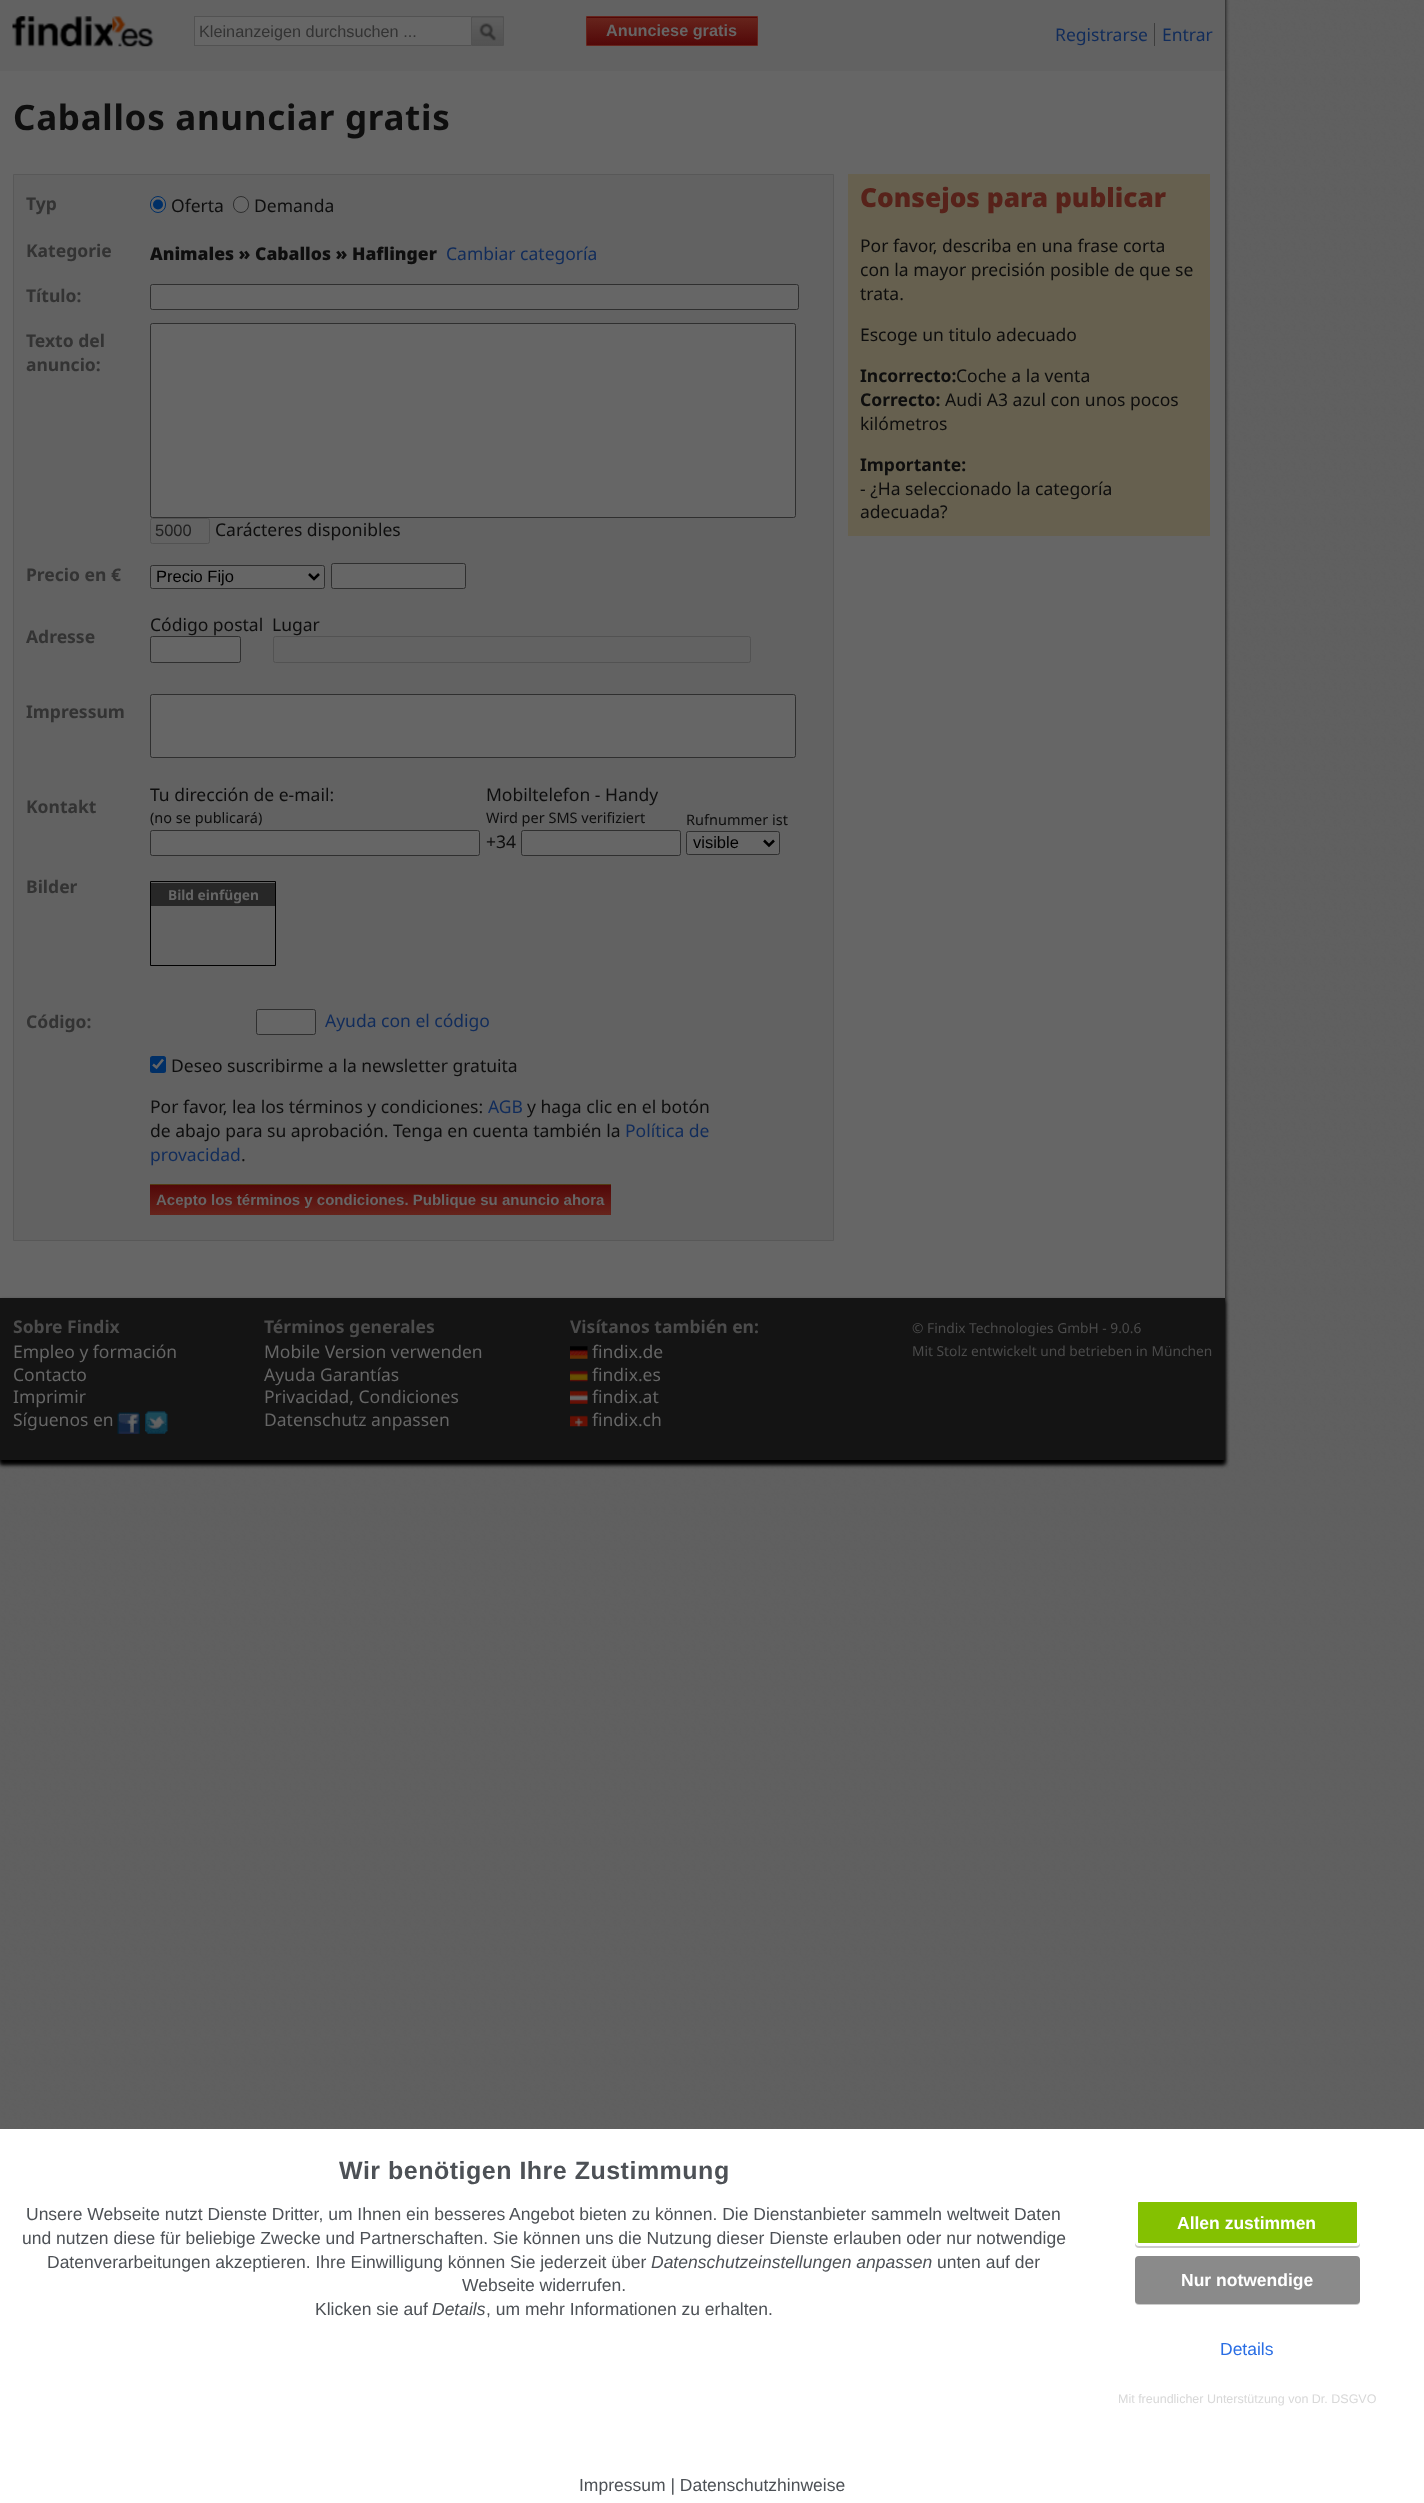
<svg xmlns="http://www.w3.org/2000/svg" width="1424" height="2503" viewBox="0 0 1424 2503">
  <defs>
    <linearGradient id="g1" gradientUnits="userSpaceOnUse" x1="473" y1="-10" x2="473" y2="18"><stop offset="0" stop-color="#5f5f5f"/><stop offset="1" stop-color="#525252"/></linearGradient>
    <linearGradient id="g2" gradientUnits="userSpaceOnUse" x1="473" y1="18" x2="473" y2="45"><stop offset="0" stop-color="#5f5f5f"/><stop offset="1" stop-color="#525252"/></linearGradient>
    <linearGradient id="g3" gradientUnits="userSpaceOnUse" x1="588" y1="-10" x2="588" y2="18"><stop offset="0" stop-color="#66241c"/><stop offset="1" stop-color="#520808"/></linearGradient>
    <linearGradient id="g4" gradientUnits="userSpaceOnUse" x1="588" y1="18" x2="588" y2="45"><stop offset="0" stop-color="#66241c"/><stop offset="1" stop-color="#520808"/></linearGradient>
    <linearGradient id="g5" gradientUnits="userSpaceOnUse" x1="150" y1="1185" x2="150" y2="1215"><stop offset="0" stop-color="#520808"/><stop offset="1" stop-color="#66241c"/></linearGradient>
  </defs>
  <rect width="100%" height="100%" fill="#fff"/>
  <image x="0" y="0" width="1424" height="2129" href="img/1.png"/>
  <path d="M0 -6h1225v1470H0z" fill="#000" filter="blur(2px)"/>
  <path d="M0 71h1225v1227H0z" fill="#666"/>
  <path d="M0 0h1225v71H0z" fill="#626262"/>
  <image x="12" y="16" width="101" height="31" href="img/2.png"/>
  <image x="112" y="16" width="42" height="31" href="img/3.png"/>
  <path d="M195 17h276v28H195z" fill="#666"/>
  <path d="M194 16h277v1H194z" fill="#525252"/>
  <path d="M194 45h277v1H194z" fill="#525252"/>
  <path d="M194 16h1v30H194z" fill="#525252"/>
  <path d="M471 17h33v1H471z" fill="url(#g1)"/>
  <path d="M472 18h31v27H472z" fill="url(#g2)"/>
  <path d="M471.5 16.5h32v29H471.5z" fill="none" stroke="#525252"/>
  <image x="472" y="17" width="31" height="24" href="img/4.png"/>
  <path d="M586 17h172v1H586z" fill="url(#g3)"/>
  <path d="M587 18h170v27H587z" fill="url(#g4)"/>
  <path d="M586.5 16.5h171v29H586.5z" fill="none" stroke="#66241c"/>
  <path d="M1154 23h1v23H1154z" fill="#3d3d3d"/>
  <path d="M13.5 174.5h820v1066H13.5z" fill="#626262" stroke="#585858"/>
  <rect x="150.5" y="196.5" width="15" height="16" rx="7.5" fill="#666" stroke="#002f66"/>
  <circle cx="158" cy="204.5" r="5" fill="#002f66"/>
  <rect x="233.5" y="196.5" width="15" height="16" rx="7.5" fill="#666" stroke="#2f2f2f"/>
  <rect x="150.5" y="284.5" width="648" height="25" rx="2" fill="#666" stroke="#2f2f2f"/>
  <rect x="150.5" y="323.5" width="645" height="194" rx="2" fill="#666" stroke="#2f2f2f"/>
  <rect x="150.5" y="518.5" width="59" height="25" rx="2" fill="none" stroke="#525252"/>
  <rect x="150.5" y="565.5" width="174" height="23" rx="2" fill="#666" stroke="#2f2f2f"/>
  <path d="M309 574L314 579L319 574" fill="none" stroke="#000" stroke-width="2.5"/>
  <rect x="331.5" y="563.5" width="134" height="25" rx="2" fill="#666" stroke="#2f2f2f"/>
  <rect x="150.5" y="636.5" width="90" height="26" rx="2" fill="#666" stroke="#2f2f2f"/>
  <rect x="273.5" y="636.5" width="477" height="26" rx="2" fill="none" stroke="#525252"/>
  <rect x="150.5" y="694.5" width="645" height="63" rx="2" fill="#666" stroke="#2f2f2f"/>
  <rect x="150.5" y="830.5" width="329" height="25" rx="2" fill="#666" stroke="#2f2f2f"/>
  <rect x="521.5" y="830.5" width="159" height="25" rx="2" fill="#666" stroke="#2f2f2f"/>
  <rect x="686.5" y="831.5" width="93" height="23" rx="2" fill="#666" stroke="#2f2f2f"/>
  <path d="M764 840.5L769 845.5L774 840.5" fill="none" stroke="#000" stroke-width="2.5"/>
  <path d="M150.5 881.5h125v84H150.5z" fill="none" stroke="#000"/>
  <path d="M151 883h124v23H151z" fill="#272727"/>
  <rect x="256.5" y="1009.5" width="59" height="25" rx="2" fill="#666" stroke="#2f2f2f"/>
  <rect x="150" y="1056" width="16" height="17" rx="2.5" fill="#002f66"/>
  <path d="M153 1064.5L156.5 1067.5L163 1059.5" fill="none" stroke="#666" stroke-width="2.6"/>
  <path d="M150 1185h461v30H150z" fill="url(#g5)"/>
  <path d="M150 1184h461v1H150z" fill="#533b12"/>
  <path d="M848 174h362v362H848z" fill="#66604f"/>
  <path d="M0 1301h1225v163H0z" fill="#000" filter="blur(2px)"/>
  <path d="M0 1298h1225v162H0z" fill="#141414"/>
  <image x="117" y="1412" width="23" height="22" href="img/5.png"/>
  <image x="145" y="1411" width="23" height="23" href="img/6.png"/>
  <image x="570" y="1346" width="18" height="13" href="img/7.png"/>
  <image x="570" y="1370" width="18" height="12" href="img/8.png"/>
  <image x="570" y="1390" width="18" height="14" href="img/9.png"/>
  <image x="570" y="1415" width="18" height="12" href="img/10.png"/>
  <rect x="1135" y="2200" width="225" height="48" rx="4" fill="#00000033" filter="blur(0.5px)"/>
  <rect x="1136.5" y="2200.5" width="222" height="44" rx="2.5" fill="#84c101" stroke="#fff" stroke-width="3"/>
  <rect x="1135" y="2258" width="225" height="47" rx="4" fill="#00000033" filter="blur(0.5px)"/>
  <rect x="1136.5" y="2257.5" width="222" height="45" rx="2.5" fill="#8a8a8a" stroke="#8a8a8a" stroke-width="3"/>
  <text x="199" y="37" font-family="Liberation Sans" font-size="16.25" fill="#333">Kleinanzeigen durchsuchen ...</text>
  <text x="606" y="36" font-family="Liberation Sans" font-size="16.25" font-weight="bold" fill="#666">Anunciese gratis</text>
  <g font-family="Noto Sans" font-size="17.5" fill="#112c5b">
    <text x="1055" y="41">Registrarse</text>
    <text x="1162" y="41">Entrar</text>
  </g>
  <text x="13" y="130" font-family="Noto Sans" font-size="35" font-weight="bold" letter-spacing="0.7" fill="#0e0e0e">Caballos anunciar gratis</text>
  <text x="26" y="210" font-family="Noto Sans" font-size="17.5" font-weight="bold" fill="#333">Typ</text>
  <g font-family="Noto Sans" font-size="17.5" fill="#0e0e0e">
    <text x="171" y="212">Oferta</text>
    <text x="254" y="212">Demanda</text>
  </g>
  <text x="26" y="257" font-family="Noto Sans" font-size="17.5" font-weight="bold" fill="#333">Kategorie</text>
  <text x="150" y="260" font-family="Noto Sans" font-size="17.5" font-weight="900" fill="#0e0e0e">Animales » Caballos » Haflinger</text>
  <text x="446" y="260" font-family="Noto Sans" font-size="17.5" fill="#112c5b">Cambiar categoría</text>
  <g font-family="Noto Sans" font-size="17.5" font-weight="bold" fill="#333">
    <text x="26" y="302">Título:</text>
    <text x="26" y="347">Texto del</text>
    <text x="26" y="371">anuncio:</text>
  </g>
  <text x="155" y="536" font-family="Liberation Sans" font-size="16.5" fill="#222">5000</text>
  <text x="215" y="536" font-family="Noto Sans" font-size="17.5" fill="#0e0e0e">Carácteres disponibles</text>
  <text x="26" y="581" font-family="Noto Sans" font-size="17.5" font-weight="bold" fill="#333">Precio en €</text>
  <text x="156" y="582" font-family="Liberation Sans" font-size="16.5" fill="#000">Precio Fijo</text>
  <text x="26" y="643" font-family="Noto Sans" font-size="17.5" font-weight="bold" fill="#333">Adresse</text>
  <g font-family="Noto Sans" font-size="17.5" fill="#0e0e0e">
    <text x="150" y="631">Código postal</text>
    <text x="272" y="631">Lugar</text>
  </g>
  <g font-family="Noto Sans" font-size="17.5" font-weight="bold" fill="#333">
    <text x="26" y="718">Impressum</text>
    <text x="26" y="813">Kontakt</text>
  </g>
  <text x="150" y="801" font-family="Noto Sans" font-size="17.5" fill="#0e0e0e">Tu dirección de e-mail:</text>
  <text x="150" y="823" font-family="Noto Sans" font-size="14.5" fill="#0e0e0e">(no se publicará)</text>
  <text x="486" y="801" font-family="Noto Sans" font-size="17.5" fill="#0e0e0e">Mobiltelefon - Handy</text>
  <text x="486" y="823" font-family="Noto Sans" font-size="14.5" fill="#0e0e0e">Wird per SMS verifiziert</text>
  <text x="486" y="848" font-family="Noto Sans" font-size="17.5" fill="#0e0e0e">+34</text>
  <text x="686" y="825" font-family="Noto Sans" font-size="14.5" fill="#0e0e0e">Rufnummer ist</text>
  <text x="693" y="848" font-family="Liberation Sans" font-size="16.5" fill="#000">visible</text>
  <text x="26" y="893" font-family="Noto Sans" font-size="17.5" font-weight="bold" fill="#333">Bilder</text>
  <text x="168" y="900" font-family="Noto Sans" font-size="13.75" font-weight="bold" fill="#666">Bild einfügen</text>
  <text x="26" y="1028" font-family="Noto Sans" font-size="17.5" font-weight="bold" fill="#333">Código:</text>
  <text x="325" y="1027" font-family="Noto Sans" font-size="17.5" fill="#112c5b">Ayuda con el código</text>
  <g font-family="Noto Sans" font-size="17.5" fill="#0e0e0e">
    <text x="171" y="1072">Deseo suscribirme a la newsletter gratuita</text>
    <text x="150" y="1113">Por favor, lea los términos y condiciones:</text>
  </g>
  <text x="488" y="1113" font-family="Noto Sans" font-size="17.5" fill="#112c5b">AGB</text>
  <g font-family="Noto Sans" font-size="17.5" fill="#0e0e0e">
    <text x="527" y="1113">y haga clic en el botón</text>
    <text x="150" y="1137">de abajo para su aprobación. Tenga en cuenta también la</text>
  </g>
  <g font-family="Noto Sans" font-size="17.5" fill="#112c5b">
    <text x="625" y="1137">Política de</text>
    <text x="150" y="1161">provacidad</text>
  </g>
  <text x="241" y="1161" font-family="Noto Sans" font-size="17.5" fill="#0e0e0e">.</text>
  <text x="156" y="1205" font-family="Liberation Sans" font-size="15" font-weight="bold" fill="#666">Acepto los términos y condiciones. Publique su anuncio ahora</text>
  <text x="860" y="207" font-family="Noto Sans" font-size="26.25" font-weight="900" fill="#57221a">Consejos para publicar</text>
  <g font-family="Noto Sans" font-size="17.5" fill="#0e0e0e">
    <text x="860" y="252">Por favor, describa en una frase corta</text>
    <text x="860" y="276">con la mayor precisión posible de que se</text>
    <text x="860" y="300">trata.</text>
    <text x="860" y="341">Escoge un titulo adecuado</text>
  </g>
  <text x="860" y="382" font-family="Noto Sans" font-size="17.5" font-weight="bold" fill="#0e0e0e">Incorrecto:</text>
  <text x="956" y="382" font-family="Noto Sans" font-size="17.5" fill="#0e0e0e">Coche a la venta</text>
  <text x="860" y="406" font-family="Noto Sans" font-size="17.5" font-weight="bold" fill="#0e0e0e">Correcto:</text>
  <g font-family="Noto Sans" font-size="17.5" fill="#0e0e0e">
    <text x="945" y="406">Audi A3 azul con unos pocos</text>
    <text x="860" y="430">kilómetros</text>
  </g>
  <text x="860" y="471" font-family="Noto Sans" font-size="17.5" font-weight="bold" fill="#0e0e0e">Importante:</text>
  <g font-family="Noto Sans" font-size="17.5" fill="#0e0e0e">
    <text x="860" y="495">- ¿Ha seleccionado la categoría</text>
    <text x="860" y="518">adecuada?</text>
  </g>
  <text x="13" y="1333" font-family="Noto Sans" font-size="17.5" font-weight="bold" fill="#4b4b4b">Sobre Findix</text>
  <g font-family="Noto Sans" font-size="17.5" fill="#666">
    <text x="13" y="1358">Empleo y formación</text>
    <text x="13" y="1381">Contacto</text>
    <text x="13" y="1403">Imprimir</text>
    <text x="13" y="1426">Síguenos en</text>
  </g>
  <text x="264" y="1333" font-family="Noto Sans" font-size="17.5" font-weight="bold" fill="#4b4b4b">Términos generales</text>
  <g font-family="Noto Sans" font-size="17.5" fill="#666">
    <text x="264" y="1358">Mobile Version verwenden</text>
    <text x="264" y="1381">Ayuda Garantías</text>
    <text x="264" y="1403">Privacidad, Condiciones</text>
    <text x="264" y="1426">Datenschutz anpassen</text>
  </g>
  <text x="570" y="1333" font-family="Noto Sans" font-size="17.5" font-weight="bold" fill="#4b4b4b">Visítanos también en:</text>
  <g font-family="Noto Sans" font-size="17.5" fill="#666">
    <text x="592" y="1358">findix.de</text>
    <text x="592" y="1381">findix.es</text>
    <text x="592" y="1403">findix.at</text>
    <text x="592" y="1426">findix.ch</text>
  </g>
  <g font-family="Noto Sans" font-size="13.75" fill="#4b4b4b">
    <text x="912" y="1333">© Findix Technologies GmbH - 9.0.6</text>
    <text x="912" y="1356">Mit Stolz entwickelt und betrieben in München</text>
  </g>
  <text x="339" y="2179" font-family="Liberation Sans" font-size="25" font-weight="bold" letter-spacing="0.5" fill="#4d5156">Wir benötigen Ihre Zustimmung</text>
  <g font-family="Liberation Sans" font-size="17.5" fill="#4d5156">
    <text x="26" y="2220">Unsere Webseite nutzt Dienste Dritter, um Ihnen ein besseres Angebot bieten zu können. Die Dienstanbieter sammeln weltweit Daten</text>
    <text x="22" y="2244">und nutzen diese für beliebige Zwecke und Partnerschaften. Sie können uns die Nutzung dieser Dienste erlauben oder nur notwendige</text>
    <text x="47" y="2268">Datenverarbeitungen akzeptieren. Ihre Einwilligung können Sie jederzeit über</text>
  </g>
  <text x="651" y="2268" font-family="Liberation Sans" font-size="17.5" font-style="italic" fill="#4d5156">Datenschutzeinstellungen anpassen</text>
  <g font-family="Liberation Sans" font-size="17.5" fill="#4d5156">
    <text x="937" y="2268">unten auf der</text>
    <text x="462" y="2291">Webseite widerrufen.</text>
    <text x="315" y="2315">Klicken sie auf</text>
  </g>
  <text x="432" y="2315" font-family="Liberation Sans" font-size="17.5" font-style="italic" fill="#4d5156">Details</text>
  <text x="486" y="2315" font-family="Liberation Sans" font-size="17.5" fill="#4d5156">, um mehr Informationen zu erhalten.</text>
  <g font-family="Liberation Sans" font-size="17.5" font-weight="bold" fill="#fff">
    <text x="1177" y="2229">Allen zustimmen</text>
    <text x="1181" y="2286">Nur notwendige</text>
  </g>
  <text x="1220" y="2355" font-family="Liberation Sans" font-size="17.5" fill="#2a6ee4">Details</text>
  <text x="1118" y="2403" font-family="Liberation Sans" font-size="12.5" fill="#d8d8d8">Mit freundlicher Unterstützung von Dr. DSGVO</text>
  <text x="579" y="2491" font-family="Liberation Sans" font-size="17.5" fill="#4d5156">Impressum | Datenschutzhinweise</text>
</svg>
